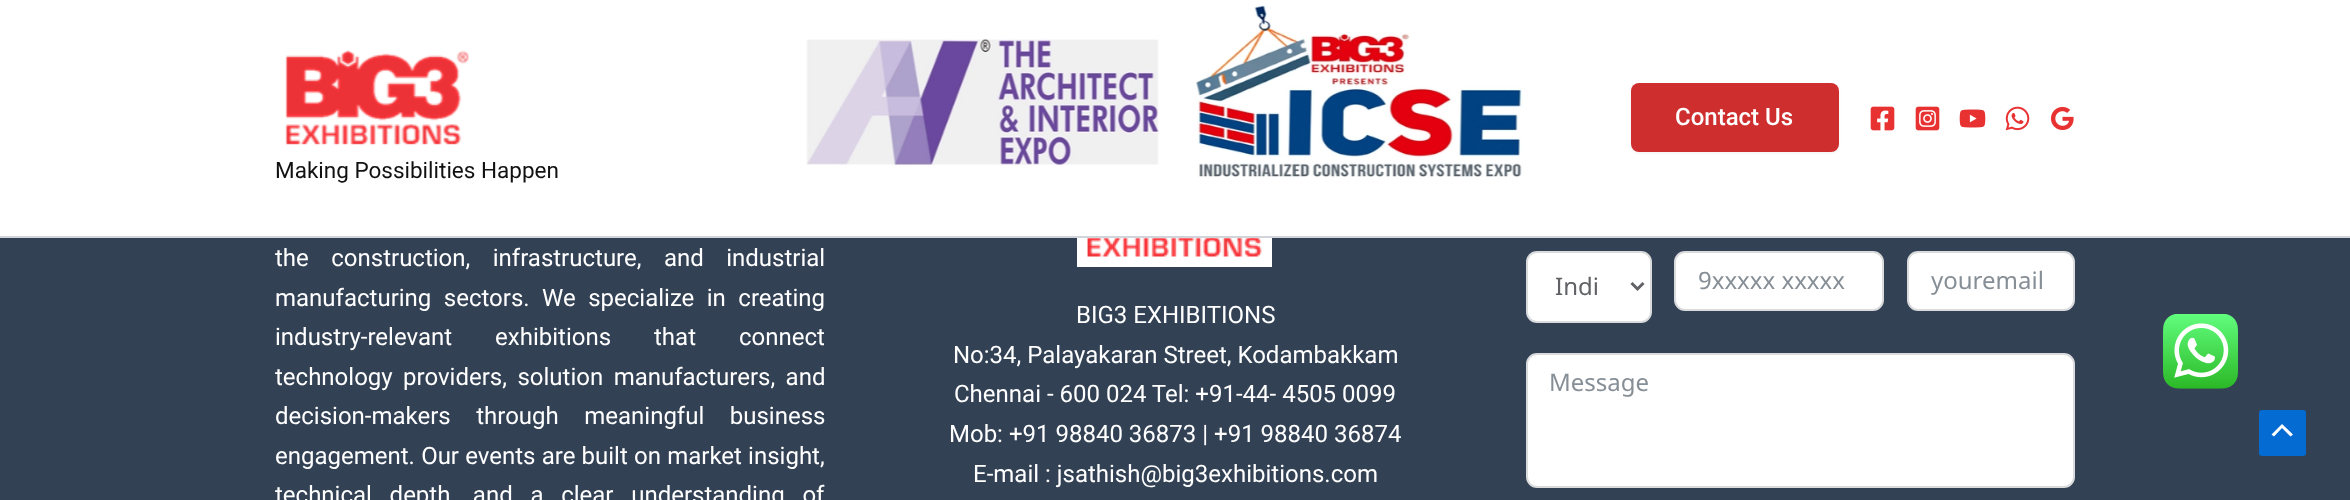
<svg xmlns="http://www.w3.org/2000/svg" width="2350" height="500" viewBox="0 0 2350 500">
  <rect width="100%" height="100%" fill="#334155"/>
  <path d="M0 0h2350v236H0z" fill="#fff"/>
  <path d="M0 236h2350v2H0z" fill="#d1d5db"/>
  <image x="806" y="39" width="353" height="127" href="img/1.png"/>
  <image x="1196" y="5" width="327" height="172" href="img/2.png"/>
  <rect x="1631" y="84" width="208" height="69" rx="8" fill="#0000000d" filter="blur(1.5px)"/>
  <rect x="1631" y="83" width="208" height="69" rx="8" fill="#cf2e2e"/>
  <image x="1870" y="106" width="25" height="25" href="img/3.png"/>
  <image x="1915" y="106" width="25" height="25" href="img/4.png"/>
  <image x="1959" y="109" width="27" height="19" href="img/5.png"/>
  <image x="2005" y="106" width="25" height="25" href="img/6.png"/>
  <image x="2050" y="106" width="24" height="25" href="img/7.png"/>
  <image x="285" y="50" width="184" height="95" href="img/8.png"/>
  <image x="1077" y="238" width="195" height="29" href="img/9.png"/>
  <rect x="1527" y="252" width="124" height="70" rx="10" fill="#fff" stroke="#dadbdd" stroke-width="2"/>
  <path d="M1631.5 283L1637.5 289L1643.5 283" fill="none" stroke="#606266" stroke-width="3"/>
  <rect x="1675" y="252" width="208" height="58" rx="10" fill="#fff" stroke="#dadbdd" stroke-width="2"/>
  <rect x="1908" y="252" width="166" height="58" rx="10" fill="#fff" stroke="#dadbdd" stroke-width="2"/>
  <rect x="1527" y="354" width="547" height="133" rx="10" fill="#fff" stroke="#dadbdd" stroke-width="2"/>
  <image x="2163" y="314" width="75" height="75" href="img/10.png"/>
  <rect x="2259" y="410" width="47" height="46" rx="3" fill="#046bd2"/>
  <path d="M2293 434.5L2282 424L2271.5 434.5L2274 436.5L2282 428L2290.5 436.5Z" fill="#fff"/>
  <text x="1675" y="125" font-family="Roboto" font-size="24" font-weight="500" fill="#fff">Contact Us</text>
  <text x="275" y="178" font-family="Roboto" font-size="22.5" fill="#111">Making Possibilities Happen</text>
  <g font-family="Roboto" font-size="24" fill="#fff">
    <text x="275" y="266" word-spacing="16.5">the construction, infrastructure, and industrial</text>
    <text x="275" y="306" word-spacing="6.5">manufacturing sectors. We specialize in creating</text>
    <text x="275" y="345" word-spacing="37">industry-relevant exhibitions that connect</text>
    <text x="275" y="385" word-spacing="4.5">technology providers, solution manufacturers, and</text>
    <text x="275" y="424" word-spacing="19.5">decision-makers through meaningful business</text>
    <text x="275" y="464" word-spacing="0.25">engagement. Our events are built on market insight,</text>
    <text x="275" y="503" word-spacing="11.75">technical depth, and a clear understanding of</text>
    <text x="1076" y="323">BIG3 EXHIBITIONS</text>
    <text x="953" y="363">No:34, Palayakaran Street, Kodambakkam</text>
    <text x="954" y="402">Chennai - 600 024 Tel: +91-44- 4505 0099</text>
    <text x="949" y="442">Mob: +91 98840 36873 | +91 98840 36874</text>
    <text x="973" y="482">E-mail : jsathish@big3exhibitions.com</text>
  </g>
  <text x="1555" y="295" font-family="Noto Sans" font-size="24" fill="#606266">Indi</text>
  <g font-family="Noto Sans" font-size="24" fill="#868e96">
    <text x="1698" y="289">9xxxxx xxxxx</text>
    <text x="1931" y="289">youremail</text>
    <text x="1549" y="391">Message</text>
  </g>
</svg>
